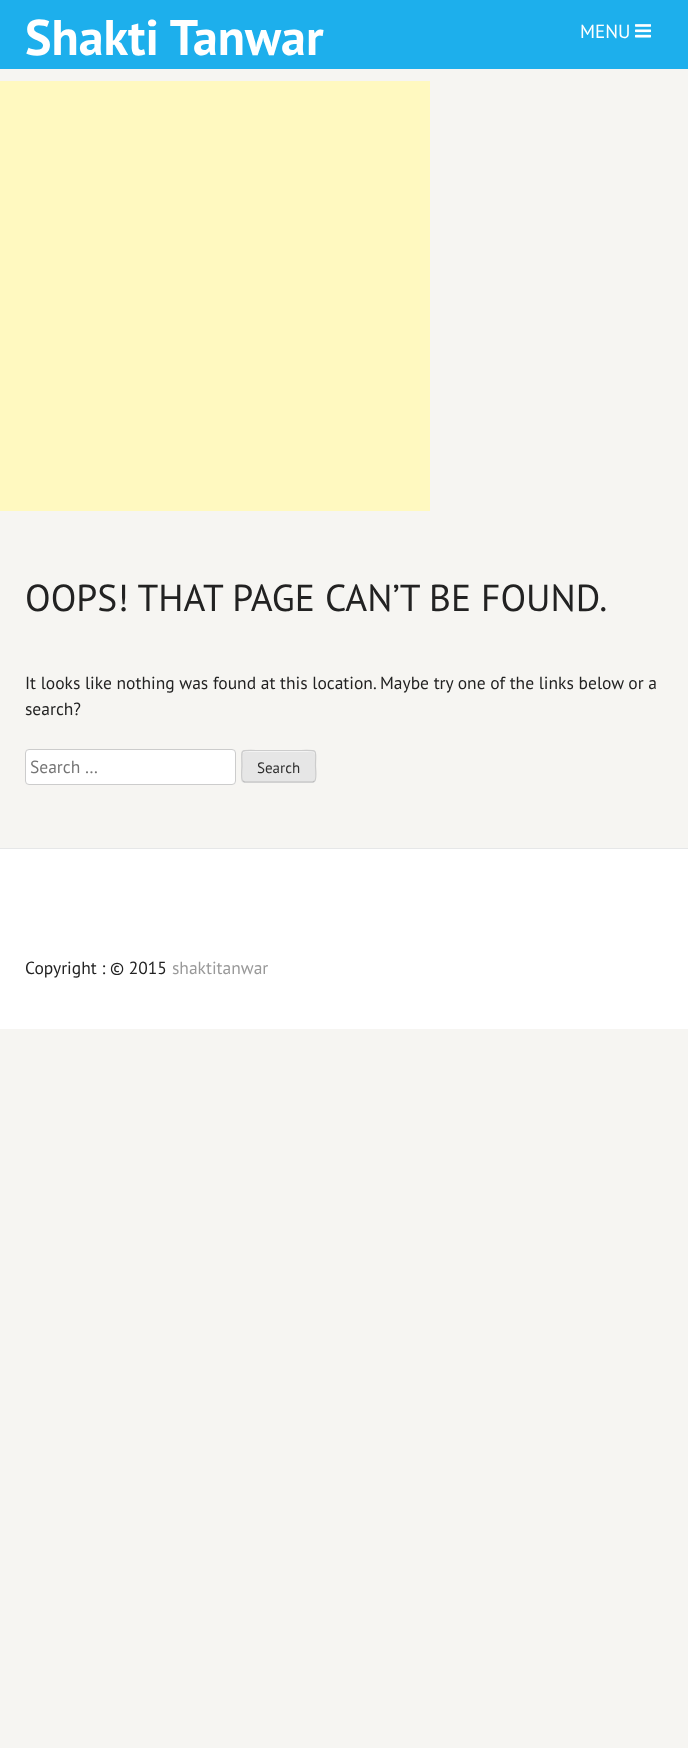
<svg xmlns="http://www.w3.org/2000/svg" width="688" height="1748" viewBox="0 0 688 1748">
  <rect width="100%" height="100%" fill="#f6f5f2"/>
  <path d="M0 0h688v69H0z" fill="#1dafec"/>
  <image x="635" y="24" width="16" height="14" href="img/1.png"/>
  <path d="M0 81h430v430H0z" fill="#fff9c0"/>
  <rect x="25.5" y="749.5" width="210" height="35" rx="3.5" fill="#fff" stroke="#ccc"/>
  <rect x="241" y="750" width="75" height="33" rx="4" fill="#e6e6e6"/>
  <path d="M245 752H312C314 752 315 754 315 755V754C315 752 314 751 312 751H246C244 751 243 752 243 753Z" fill="#f3f3f3"/>
  <path d="M314.5 781L313 782H244.5L243 781" fill="none" stroke="#bbb" stroke-width="1.2"/>
  <path d="M243 781C240.5 779 242 769 242 766C242 748.5 238.5 750.5 256 750.5H301C319 750.5 315.5 748.5 315.5 766C315.5 769 317 779 314.5 781" fill="none" stroke="#ccc" stroke-width="1.2"/>
  <path d="M0 849h688v180H0z" fill="#fff"/>
  <path d="M0 848h688v1H0z" fill="#e6e7e8"/>
  <text x="25" y="55" font-family="PT Sans" font-size="50" font-weight="bold" fill="#fff">Shakti Tanwar</text>
  <text x="580" y="38" font-family="PT Sans" font-size="19" fill="#fff">MENU</text>
  <text x="25" y="611" font-family="PT Sans" font-size="37.5" fill="#222">OOPS! THAT PAGE CAN’T BE FOUND.</text>
  <g font-family="PT Sans" font-size="17.5" fill="#222">
    <text x="25" y="689">It looks like nothing was found at this location. Maybe try one of the links below or a</text>
    <text x="25" y="715">search?</text>
  </g>
  <text x="30" y="773" font-family="PT Sans" font-size="17.5" fill="#757575">Search …</text>
  <text x="257" y="773" font-family="PT Sans" font-size="15" fill="#2e2e2e">Search</text>
  <text x="25" y="974" font-family="PT Sans" font-size="17.5" fill="#222">Copyright : © 2015</text>
  <text x="172" y="974" font-family="PT Sans" font-size="17.5" fill="#999">shaktitanwar</text>
</svg>
